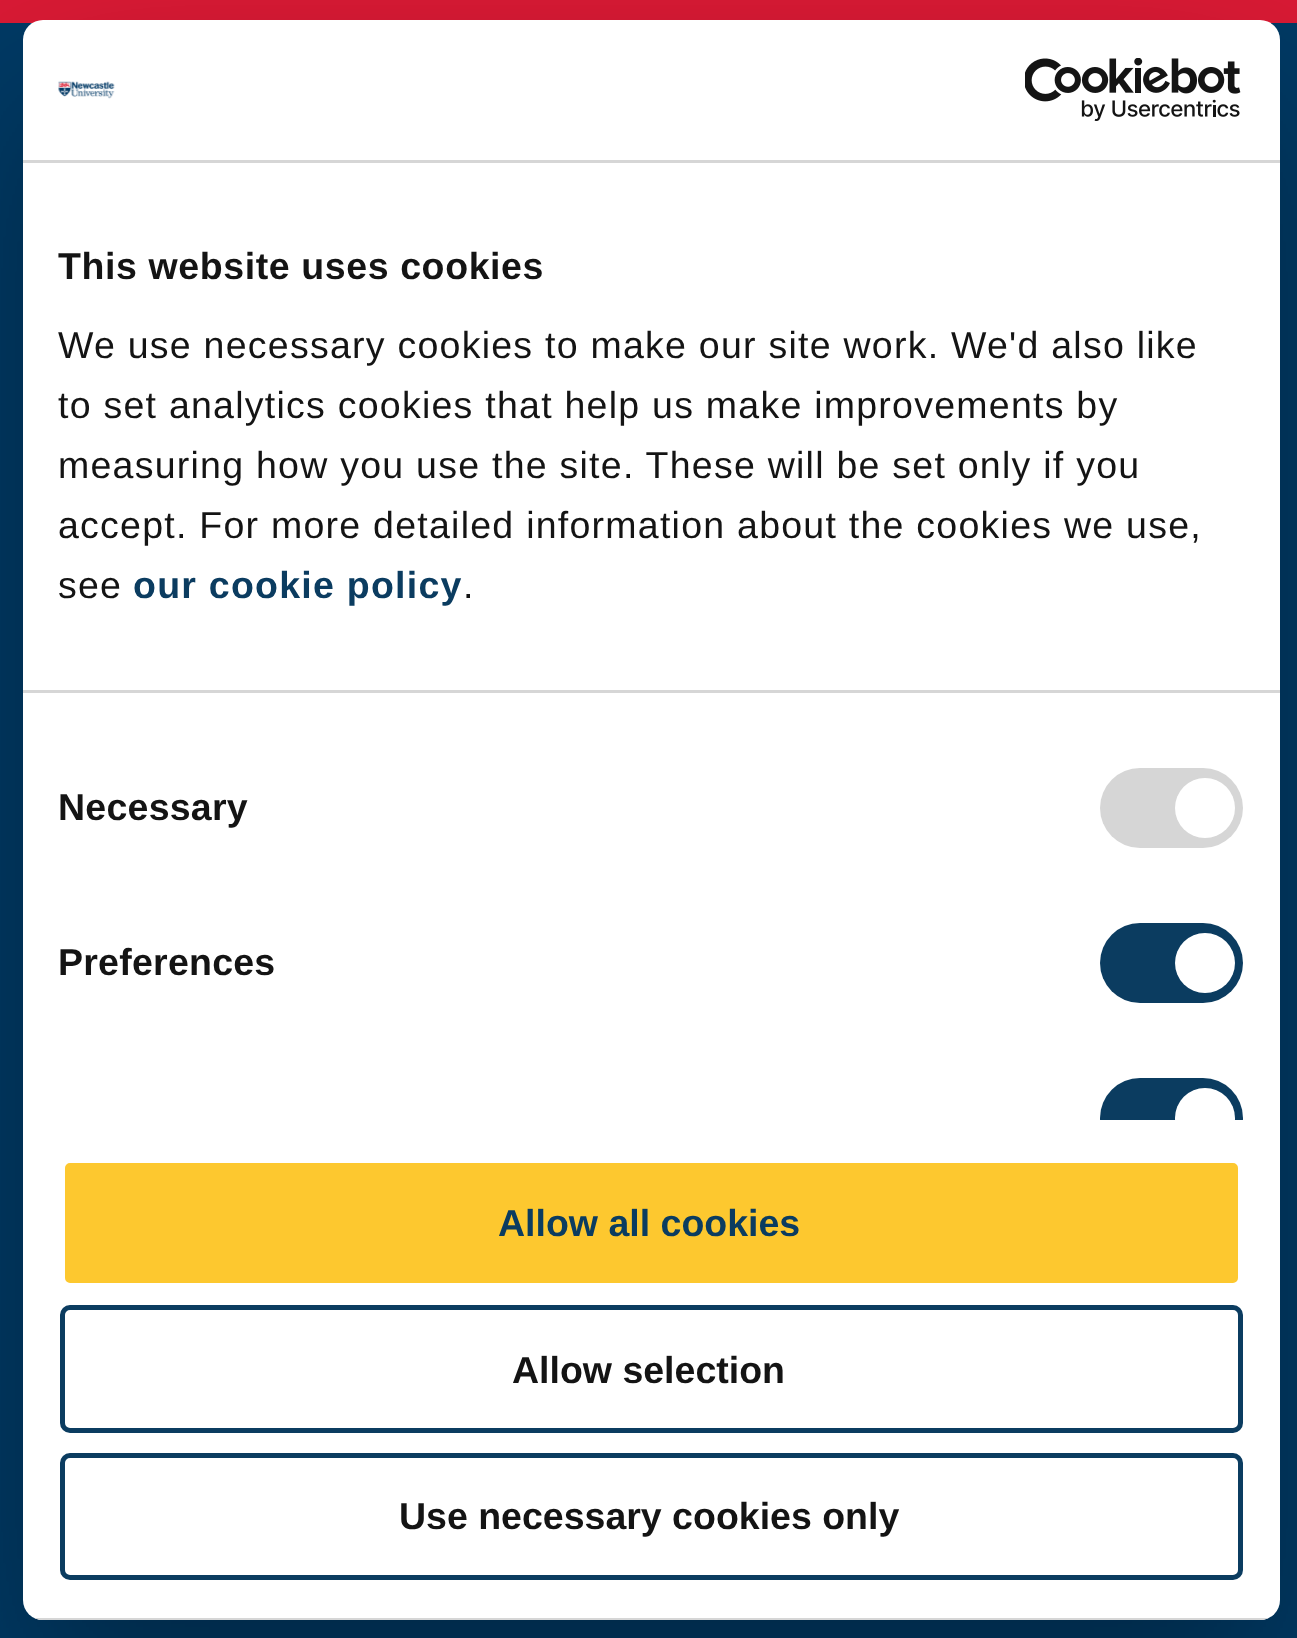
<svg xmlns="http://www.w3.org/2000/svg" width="1297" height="1638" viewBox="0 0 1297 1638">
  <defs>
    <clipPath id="clip1"><path d="M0 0H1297V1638H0ZM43 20H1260C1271 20 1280 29 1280 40V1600C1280 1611 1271 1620 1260 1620H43C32 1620 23 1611 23 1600V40C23 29 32 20 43 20Z" clip-rule="evenodd"/></clipPath>
    <clipPath id="clip2"><path d="M23 163h1257v957H23z"/></clipPath>
    <clipPath id="clip3"><rect x="23" y="20" width="1257" height="1600" rx="20"/></clipPath>
  </defs>
  <rect width="100%" height="100%" fill="#003a65"/>
  <path d="M0 0h1297v23H0z" fill="#da1a35"/>
  <g clip-path="url(#clip1)">
    <rect x="23" y="100" width="1257" height="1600" rx="20" fill="#0000004d" filter="blur(85px)"/>
  </g>
  <rect x="23" y="20" width="1257" height="1600" rx="20" fill="#fff"/>
  <path d="M23 160h1257v3H23z" fill="#d6d6d6"/>
  <image x="58" y="81" width="57" height="18" href="img/1.png"/>
  <image x="1025" y="58" width="216" height="63" href="img/2.png"/>
  <path d="M23 690h1257v3H23z" fill="#d6d6d6"/>
  <rect x="1100" y="768" width="143" height="80" rx="40" fill="#d6d6d6"/>
  <circle cx="1205" cy="808" r="30" fill="#fff"/>
  <rect x="1100" y="923" width="143" height="80" rx="40" fill="#0b3c60"/>
  <circle cx="1205" cy="963" r="30" fill="#fff"/>
  <g clip-path="url(#clip2)">
    <rect x="1100" y="1078" width="143" height="80" rx="40" fill="#0b3c60"/>
    <circle cx="1205" cy="1118" r="30" fill="#fff"/>
  </g>
  <g clip-path="url(#clip3)">
    <path d="M34 1618h1235v2H34z" fill="#d6d6d6"/>
  </g>
  <rect x="62.5" y="1160.5" width="1178" height="125" rx="7.5" fill="#fdc82f" stroke="#fff" stroke-width="5"/>
  <rect x="62.5" y="1307.5" width="1178" height="123" rx="7.5" fill="none" stroke="#0b3c60" stroke-width="5"/>
  <rect x="62.5" y="1455.5" width="1178" height="122" rx="7.5" fill="none" stroke="#0b3c60" stroke-width="5"/>
  <text x="58" y="279" font-family="Liberation Sans" font-size="37.5" font-weight="bold" letter-spacing="0.6" fill="#141414">This website uses cookies</text>
  <g font-family="Liberation Sans" font-size="37.5" letter-spacing="1.25" fill="#141414">
    <text x="58" y="358">We use necessary cookies to make our site work. We'd also like</text>
    <text x="58" y="418">to set analytics cookies that help us make improvements by</text>
    <text x="58" y="478">measuring how you use the site. These will be set only if you</text>
    <text x="58" y="538">accept. For more detailed information about the cookies we use,</text>
    <text x="58" y="598">see</text>
  </g>
  <text x="133" y="598" font-family="Liberation Sans" font-size="37.5" font-weight="bold" letter-spacing="1.25" fill="#0b3c60">our cookie policy</text>
  <text x="463" y="598" font-family="Liberation Sans" font-size="37.5" letter-spacing="1.25" fill="#141414">.</text>
  <g font-family="Liberation Sans" font-size="37.5" font-weight="bold" letter-spacing="0.25" fill="#141414">
    <text x="58" y="820">Necessary</text>
    <text x="58" y="975">Preferences</text>
  </g>
  <text x="498" y="1236" font-family="Liberation Sans" font-size="37.5" font-weight="bold" fill="#0b3c60">Allow all cookies</text>
  <g font-family="Liberation Sans" font-size="37.5" font-weight="bold" fill="#141414">
    <text x="512" y="1383">Allow selection</text>
    <text x="399" y="1529">Use necessary cookies only</text>
  </g>
</svg>
